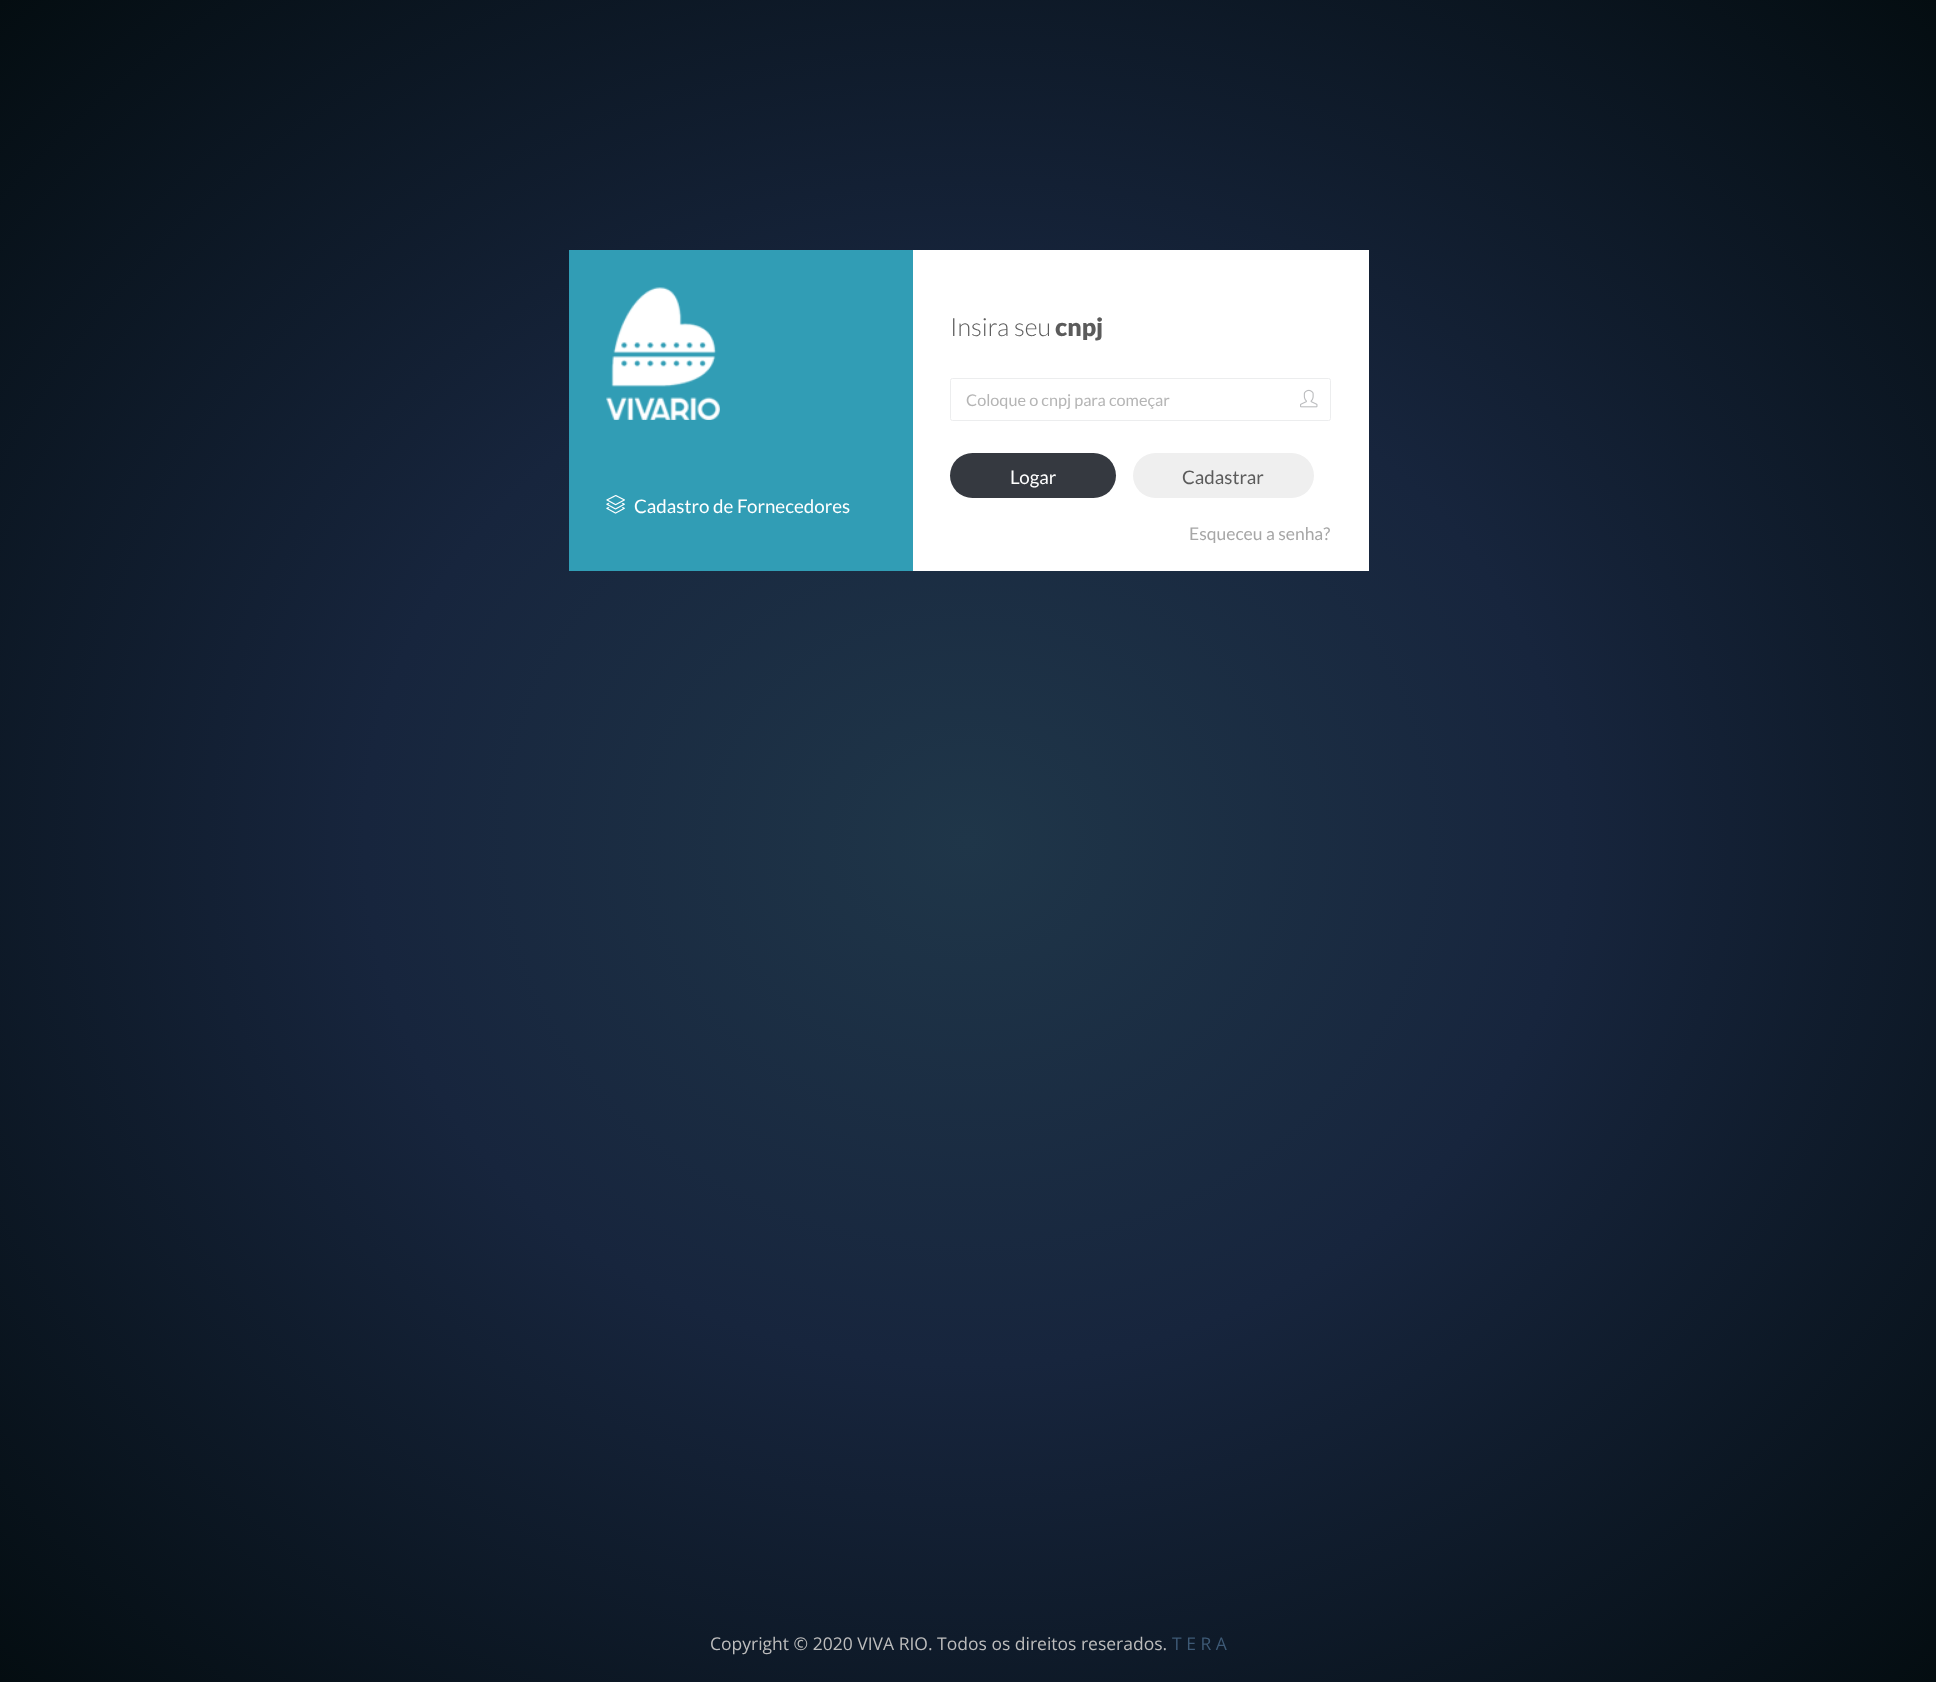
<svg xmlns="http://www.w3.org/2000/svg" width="1936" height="1682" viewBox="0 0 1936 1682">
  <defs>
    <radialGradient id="g1" gradientUnits="userSpaceOnUse" cx="0" cy="0" r="1" gradientTransform="matrix(1369 0 0 1190 968 841)"><stop offset="0" stop-color="#1f3649"/><stop offset="0.44" stop-color="#17253d"/><stop offset="1" stop-color="#040d11"/></radialGradient>
  </defs>
  <rect width="100%" height="100%" fill="#fff"/>
  <path d="M0 0h1936v1682H0z" fill="url(#g1)"/>
  <path d="M569 250h344v321H569z" fill="#319db5"/>
  <image x="606" y="287" width="114" height="133" href="img/1.png"/>
  <image x="606" y="495" width="19" height="19" href="img/2.png"/>
  <path d="M913 250h456v321H913z" fill="#fff"/>
  <rect x="950.5" y="378.5" width="380" height="42" rx="2" fill="none" stroke="#ecedee"/>
  <image x="1300" y="389" width="18" height="19" href="img/3.png"/>
  <rect x="950" y="453" width="166" height="45" rx="22.5" fill="#353940"/>
  <rect x="1133" y="453" width="181" height="45" rx="22.5" fill="#efefef"/>
  <text x="634" y="513" font-family="Lato" font-size="18.75" fill="#fff">Cadastro de Fornecedores</text>
  <text x="950" y="336" font-family="Lato" font-size="25" font-weight="300" fill="#5b5b5b">Insira seu</text>
  <text x="1055" y="336" font-family="Lato" font-size="25" font-weight="900" fill="#5b5b5b">cnpj</text>
  <text x="966" y="406" font-family="Lato" font-size="16.25" fill="#b5b5b5">Coloque o cnpj para começar</text>
  <text x="1010" y="484" font-family="Lato" font-size="18.75" fill="#fff">Logar</text>
  <text x="1182" y="484" font-family="Lato" font-size="18.75" fill="#5b5b5b">Cadastrar</text>
  <text x="1189" y="540" font-family="Lato" font-size="17.5" fill="#a7a7a7">Esqueceu a senha?</text>
  <text x="710" y="1650" font-family="Open Sans" font-size="17.5" fill="#bdbdbd">Copyright © 2020 VIVA RIO. Todos os direitos reserados.</text>
  <text x="1172" y="1650" font-family="Open Sans" font-size="17.5" fill="#3e5a76">T E R A</text>
</svg>
